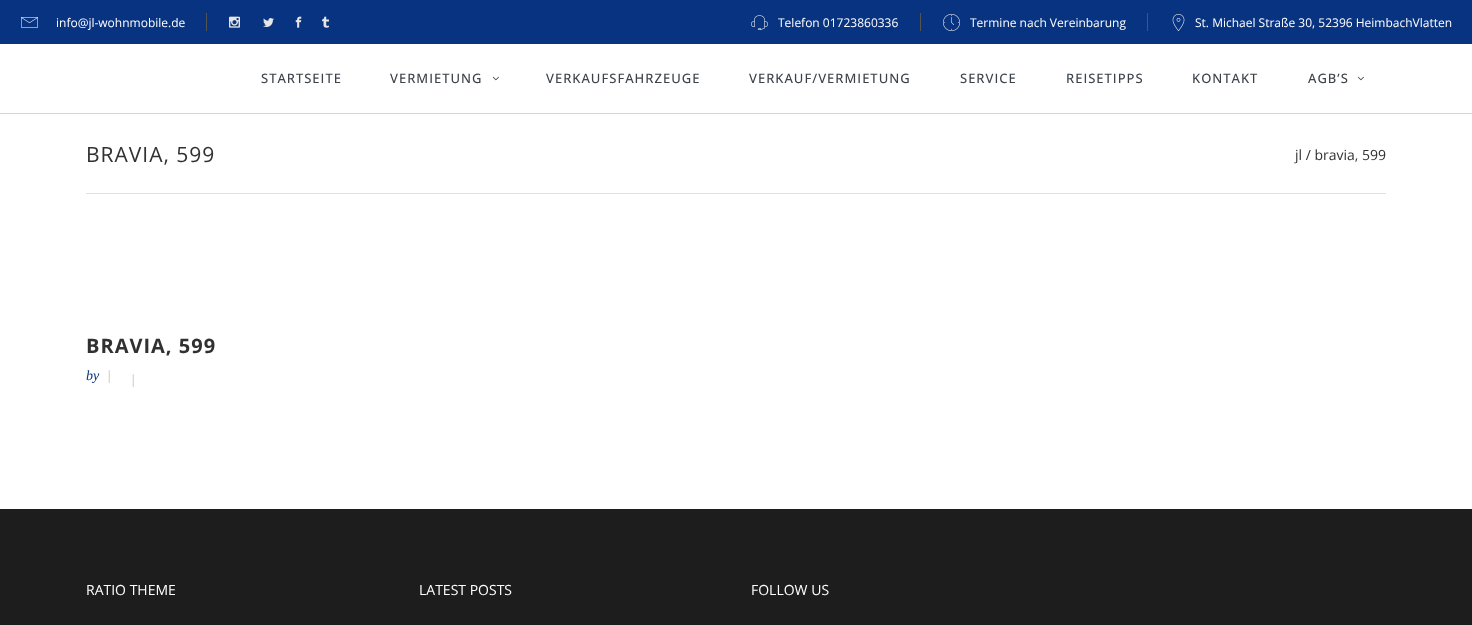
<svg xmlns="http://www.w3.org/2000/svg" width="1472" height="625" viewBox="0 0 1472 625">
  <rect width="100%" height="100%" fill="#fff"/>
  <path d="M0 0h1472v44H0z" fill="#083381"/>
  <image x="21" y="17" width="17" height="11" href="img/1.png"/>
  <path d="M206 13h1v18H206z" fill="#535353"/>
  <image x="229" y="16" width="11" height="12" href="img/2.png"/>
  <image x="263" y="18" width="11" height="9" href="img/3.png"/>
  <image x="295" y="16" width="7" height="12" href="img/4.png"/>
  <image x="322" y="16" width="7" height="12" href="img/5.png"/>
  <image x="751" y="15" width="17" height="15" href="img/6.png"/>
  <path d="M920 13h1v18H920z" fill="#535353"/>
  <image x="943" y="14" width="17" height="17" href="img/7.png"/>
  <path d="M1147 13h1v18H1147z" fill="#535353"/>
  <image x="1172" y="14" width="13" height="17" href="img/8.png"/>
  <path d="M0 113h1472v1H0z" fill="#d5d5d5"/>
  <image x="492" y="76" width="7" height="5" href="img/9.png"/>
  <image x="1357" y="76" width="7" height="5" href="img/9.png"/>
  <path d="M86 193h1300v1H86z" fill="#e0e0e0"/>
  <path d="M0 509h1472v116H0z" fill="#1d1d1d"/>
  <g font-family="Open Sans" font-size="12" fill="#fff">
    <text x="56" y="27">info@jl-wohnmobile.de</text>
    <text x="778" y="27">Telefon 01723860336</text>
    <text x="970" y="27">Termine nach Vereinbarung</text>
    <text x="1195" y="27">St. Michael Straße 30, 52396 HeimbachVlatten</text>
  </g>
  <g font-family="Open Sans" font-size="13" font-weight="500" letter-spacing="1" fill="#3c434a">
    <text x="261" y="83">STARTSEITE</text>
    <text x="390" y="83">VERMIETUNG</text>
    <text x="546" y="83">VERKAUFSFAHRZEUGE</text>
    <text x="749" y="83">VERKAUF/VERMIETUNG</text>
    <text x="960" y="83">SERVICE</text>
    <text x="1066" y="83">REISETIPPS</text>
    <text x="1192" y="83">KONTAKT</text>
    <text x="1308" y="83">AGB’S</text>
  </g>
  <text x="86" y="162" font-family="Open Sans" font-size="21" letter-spacing="1" fill="#313131">BRAVIA, 599</text>
  <text x="1295" y="160" font-family="Open Sans" font-size="14" fill="#313131">jl / bravia, 599</text>
  <text x="86" y="353" font-family="Open Sans" font-size="20" font-weight="bold" letter-spacing="1" fill="#313131">BRAVIA, 599</text>
  <text x="86" y="380" font-family="Liberation Serif" font-size="14" font-style="italic" fill="#083381">by</text>
  <g font-family="Liberation Serif" font-size="14" font-style="italic" fill="#b7b7b7">
    <text x="107" y="380">|</text>
    <text x="131" y="384">|</text>
  </g>
  <g font-family="Open Sans" font-size="14" fill="#fff">
    <text x="86" y="595">RATIO THEME</text>
    <text x="419" y="595">LATEST POSTS</text>
    <text x="751" y="595">FOLLOW US</text>
  </g>
</svg>
